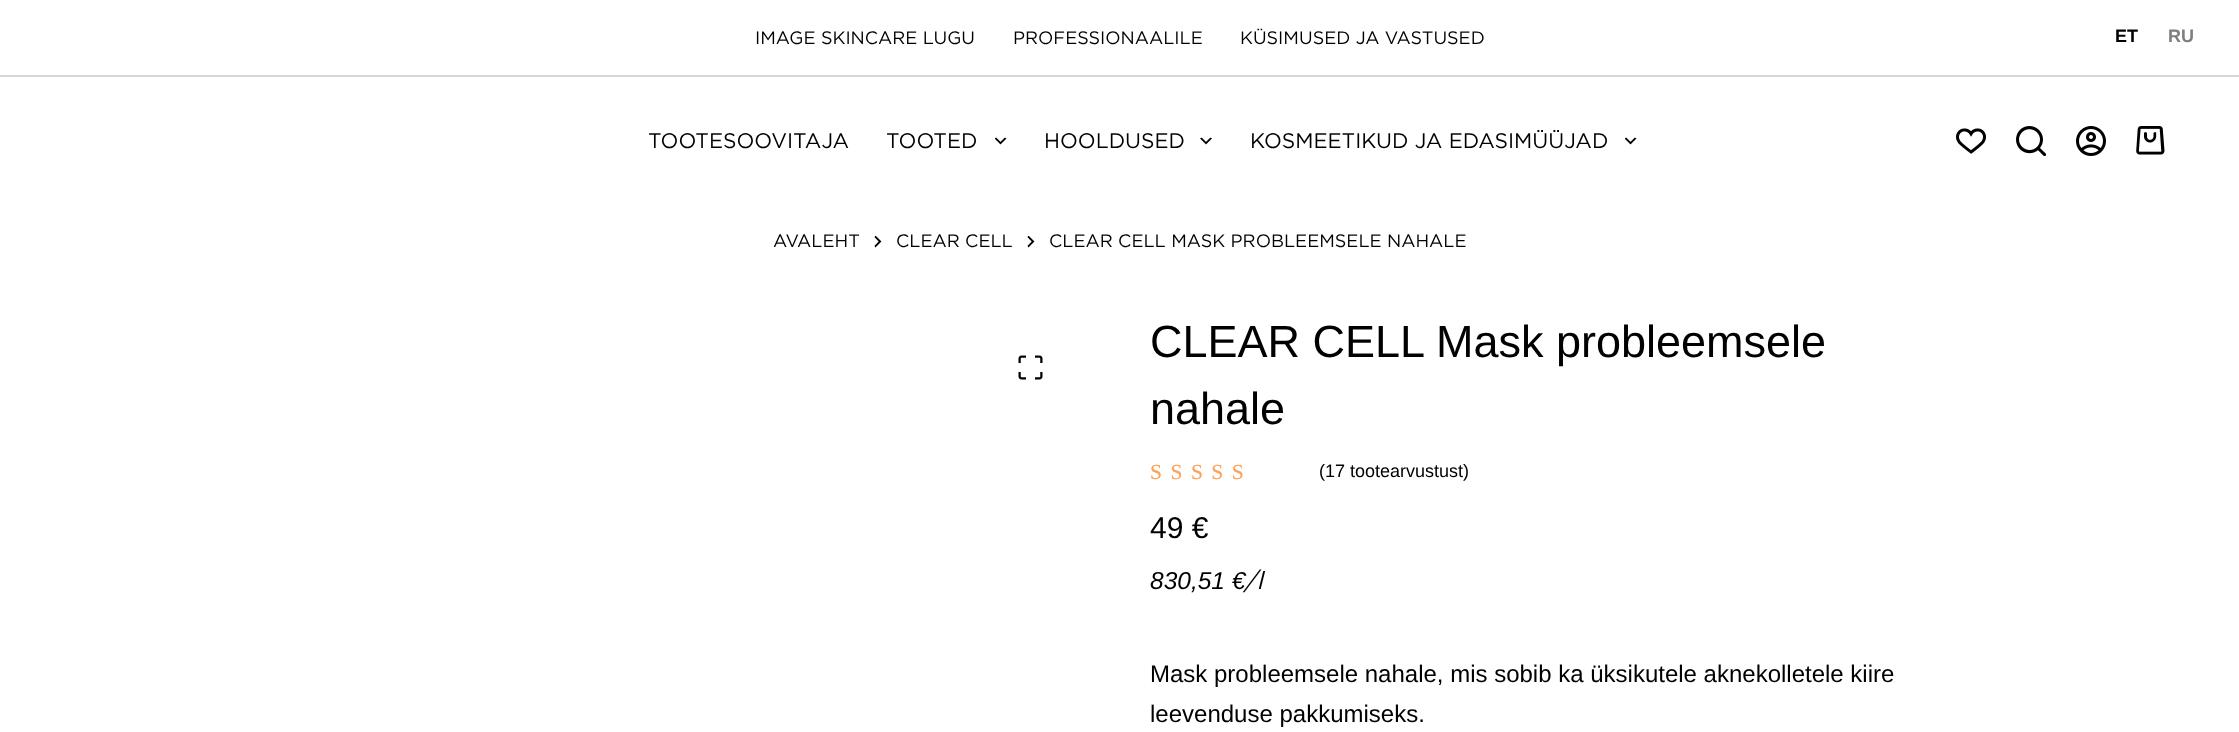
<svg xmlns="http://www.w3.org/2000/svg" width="2239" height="732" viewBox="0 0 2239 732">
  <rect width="100%" height="100%" fill="#fff"/>
  <path d="M0 75h2239v2H0z" fill="#d4d8db"/>
  <image x="995" y="137" width="12" height="8" href="img/1.png"/>
  <image x="1200" y="137" width="12" height="8" href="img/2.png"/>
  <image x="1625" y="137" width="12" height="8" href="img/1.png"/>
  <image x="1956" y="128" width="30" height="26" href="img/3.png"/>
  <image x="2016" y="126" width="30" height="30" href="img/4.png"/>
  <image x="2076" y="126" width="30" height="30" href="img/5.png"/>
  <image x="2136" y="126" width="29" height="29" href="img/6.png"/>
  <image x="874" y="236" width="8" height="12" href="img/7.png"/>
  <image x="1027" y="236" width="8" height="12" href="img/7.png"/>
  <image x="1018" y="355" width="25" height="25" href="img/8.png"/>
  <g font-family="Gotham" font-size="18" fill="#000">
    <text x="755" y="44">IMAGE SKINCARE LUGU</text>
    <text x="1013" y="44">PROFESSIONAALILE</text>
    <text x="1240" y="44">KÜSIMUSED JA VASTUSED</text>
  </g>
  <text x="2115" y="42" font-family="Liberation Sans" font-size="18" font-weight="bold" fill="#000">ET</text>
  <text x="2168" y="42" font-family="Liberation Sans" font-size="18" font-weight="bold" fill="#7e7e7e">RU</text>
  <g font-family="Gotham" font-size="21" fill="#000">
    <text x="648" y="148">TOOTESOOVITAJA</text>
    <text x="886" y="148">TOOTED</text>
    <text x="1044" y="148">HOOLDUSED</text>
    <text x="1250" y="148">KOSMEETIKUD JA EDASIMÜÜJAD</text>
  </g>
  <g font-family="Gotham" font-size="18" fill="#000">
    <text x="773" y="247">AVALEHT</text>
    <text x="896" y="247">CLEAR CELL</text>
    <text x="1049" y="247">CLEAR CELL MASK PROBLEEMSELE NAHALE</text>
  </g>
  <g font-family="Liberation Sans" font-size="45" fill="#000">
    <text x="1150" y="357">CLEAR CELL Mask probleemsele</text>
    <text x="1150" y="424">nahale</text>
  </g>
  <text x="1150" y="479" font-family="Liberation Serif" font-size="21.5" letter-spacing="8.5" fill="#f9dfcc">SSSSS</text>
  <text x="1150" y="479" font-family="Liberation Serif" font-size="21.5" letter-spacing="8.5" fill="#fda256">SSSSS</text>
  <text x="1319" y="477" font-family="Liberation Sans" font-size="18" fill="#000">(17 tootearvustust)</text>
  <text x="1150" y="538" font-family="Liberation Sans" font-size="30" fill="#000">49 €</text>
  <text x="1150" y="589" font-family="Liberation Sans" font-size="24.5" font-style="italic" fill="#000">830,51 €</text>
  <text x="1244" y="589" font-family="Gotham" font-size="24.5" font-style="italic" fill="#000">/l</text>
  <g font-family="Liberation Sans" font-size="24" fill="#000">
    <text x="1150" y="682">Mask probleemsele nahale, mis sobib ka üksikutele aknekolletele kiire</text>
    <text x="1150" y="722">leevenduse pakkumiseks.</text>
  </g>
</svg>
